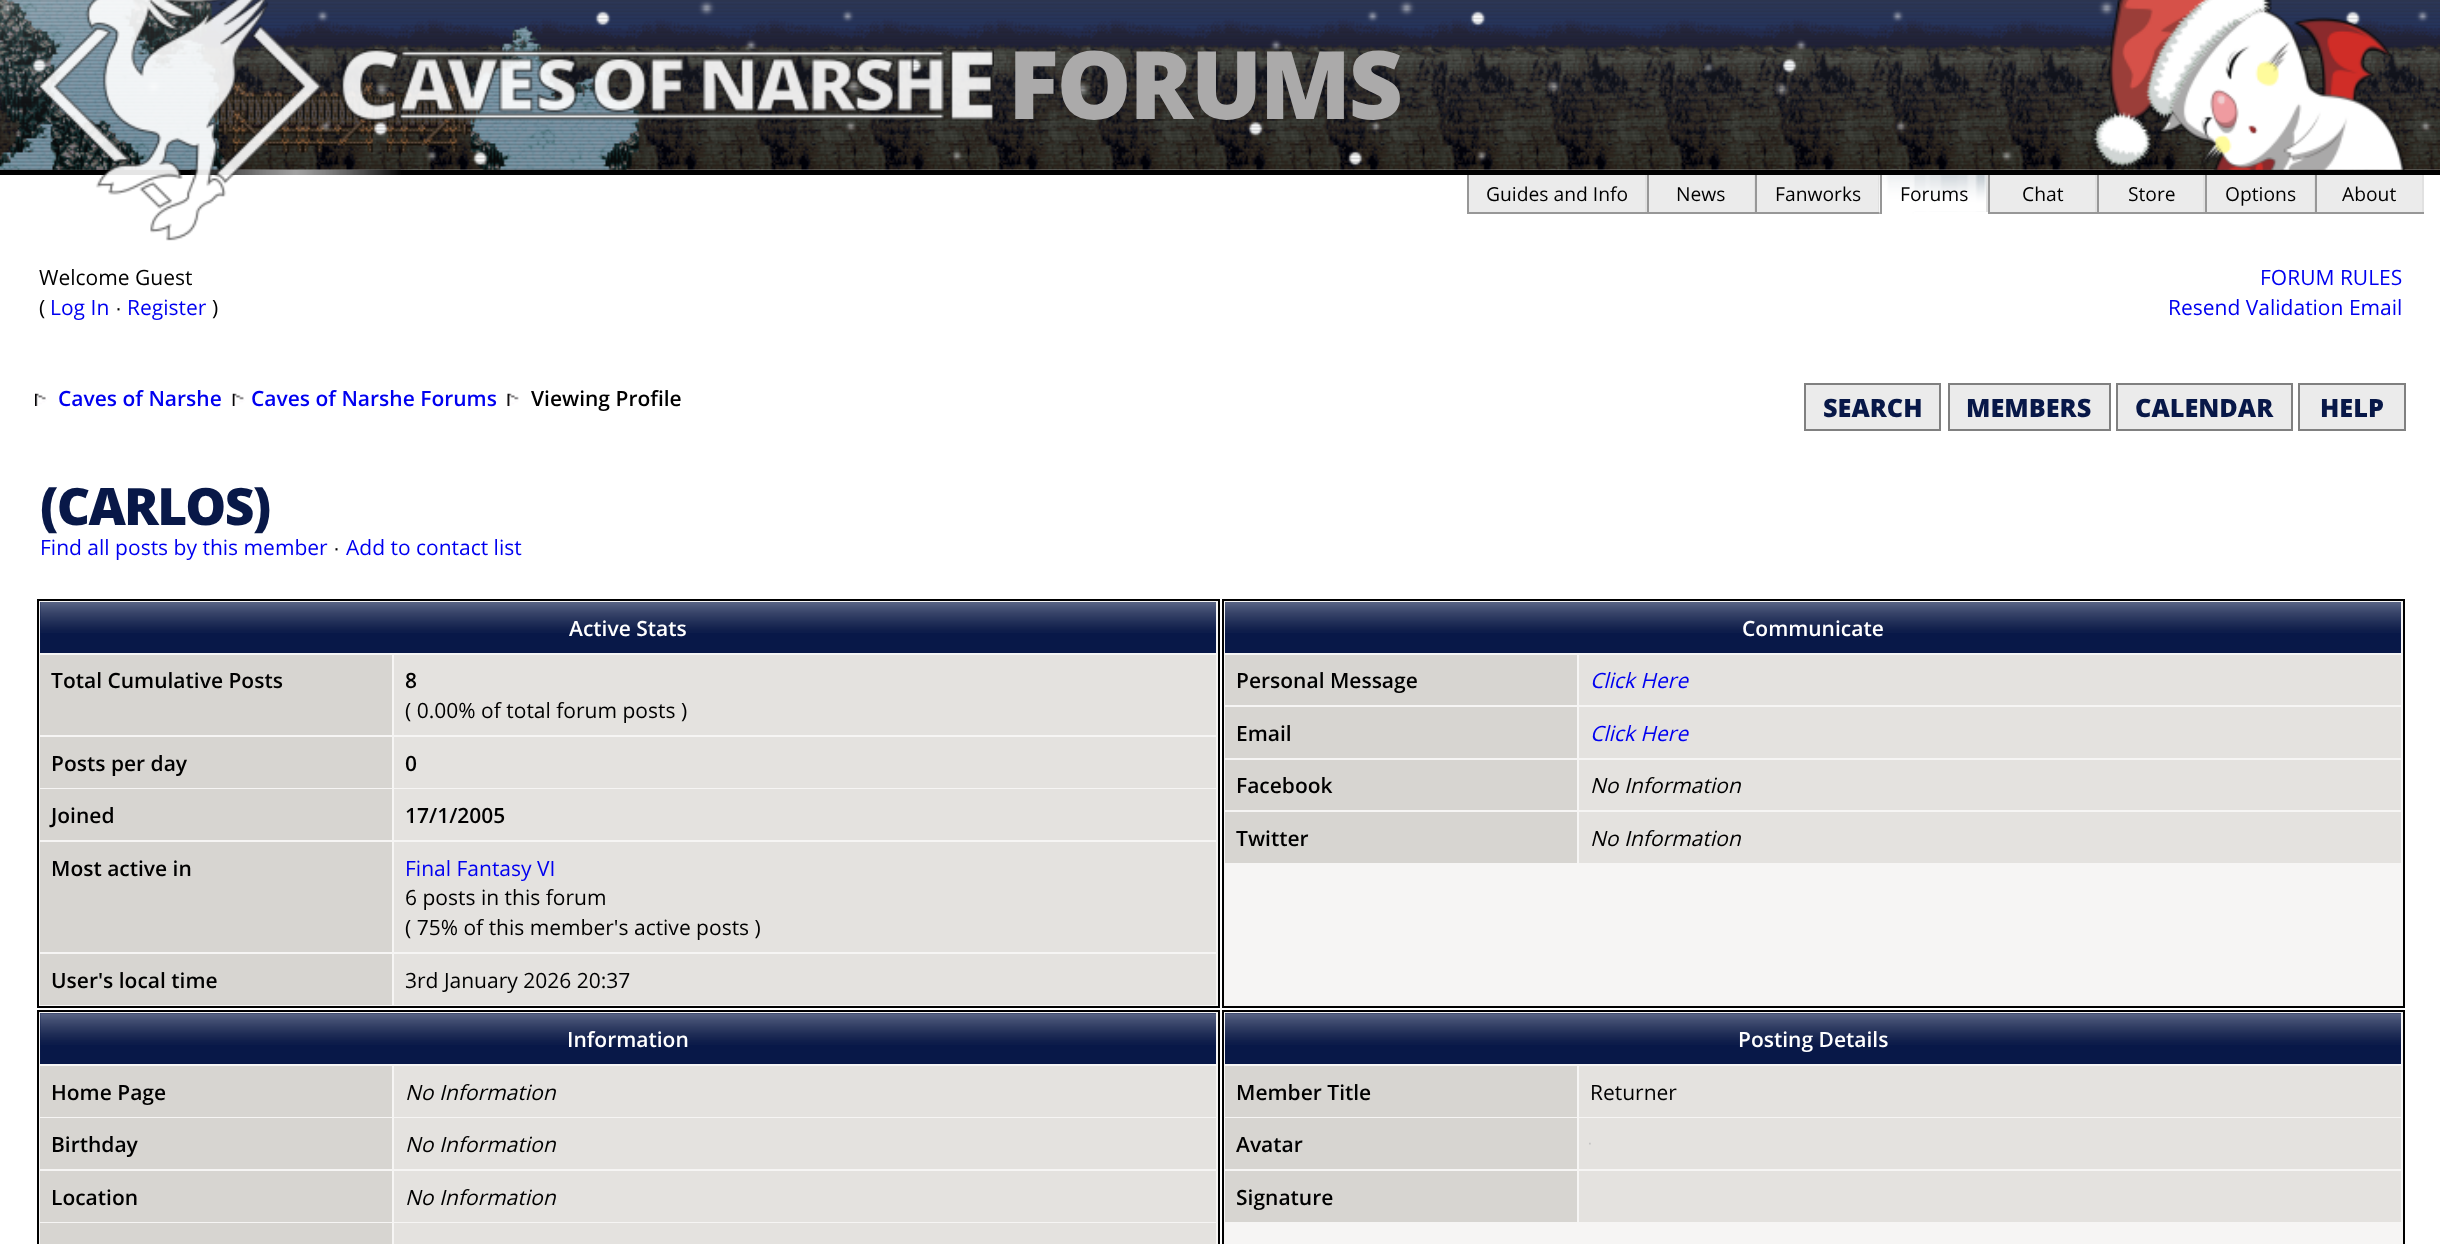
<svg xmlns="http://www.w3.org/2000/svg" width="2440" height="1244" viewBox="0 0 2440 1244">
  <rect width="100%" height="100%" fill="#fff"/>
  <path d="M2317 175h105v37H2317z" fill="#ebebeb"/>
  <path d="M1757 175h121v37H1757z" fill="#ebebeb"/>
  <image x="0" y="0" width="2440" height="170" href="img/1.png"/>
  <image x="0" y="0" width="640" height="170" href="img/2.png"/>
  <image x="0" y="0" width="2432" height="170" href="img/3.png"/>
  <image x="0" y="0" width="2440" height="170" href="img/4.png"/>
  <image x="2090" y="0" width="315" height="170" href="img/5.png"/>
  <path d="M0 170h2440v5H0z" fill="#000"/>
  <image x="190" y="169" width="211" height="6" href="img/6.png"/>
  <image x="37" y="0" width="285" height="241" href="img/7.png"/>
  <image x="341" y="49" width="653" height="72" href="img/8.png"/>
  <path d="M1469 175h176v37H1469z" fill="#ebebeb"/>
  <path d="M1645 175h2v39H1645z" fill="#e1e1e1"/>
  <path d="M1467 212h180v2H1467z" fill="#979797"/>
  <path d="M1467 175h2v39H1467z" fill="#979797"/>
  <path d="M1649 175h105v37H1649z" fill="#ebebeb"/>
  <path d="M1754 175h1v39H1754z" fill="#e1e1e1"/>
  <path d="M1647 212h108v2H1647z" fill="#979797"/>
  <path d="M1647 175h2v39H1647z" fill="#979797"/>
  <path d="M1878 175h2v39H1878z" fill="#e1e1e1"/>
  <path d="M1755 212h125v2H1755z" fill="#979797"/>
  <path d="M1755 175h2v39H1755z" fill="#979797"/>
  <image x="1879" y="175" width="107" height="39" href="img/9.png"/>
  <path d="M1986 175h2v39H1986z" fill="#e1e1e1"/>
  <path d="M1914 212h74v2H1914z" fill="#fff"/>
  <path d="M1880 175h2v39H1880z" fill="#979797"/>
  <path d="M1990 175h105v37H1990z" fill="#ebebeb"/>
  <path d="M2095 175h2v39H2095z" fill="#e1e1e1"/>
  <path d="M1988 212h109v2H1988z" fill="#979797"/>
  <path d="M1988 175h2v39H1988z" fill="#979797"/>
  <path d="M2099 175h104v37H2099z" fill="#ebebeb"/>
  <path d="M2203 175h2v39H2203z" fill="#e1e1e1"/>
  <path d="M2097 212h108v2H2097z" fill="#979797"/>
  <path d="M2097 175h2v39H2097z" fill="#979797"/>
  <path d="M2207 175h107v37H2207z" fill="#ebebeb"/>
  <path d="M2314 175h1v39H2314z" fill="#e1e1e1"/>
  <path d="M2205 212h110v2H2205z" fill="#979797"/>
  <path d="M2205 175h2v39H2205z" fill="#979797"/>
  <path d="M2422 175h2v39H2422z" fill="#e1e1e1"/>
  <path d="M2315 212h109v2H2315z" fill="#979797"/>
  <path d="M2315 175h2v39H2315z" fill="#979797"/>
  <image x="35" y="393" width="12" height="13" href="img/10.png"/>
  <image x="232" y="393" width="13" height="13" href="img/11.png"/>
  <image x="507" y="393" width="12" height="13" href="img/12.png"/>
  <path d="M1805 384h135v46H1805z" fill="#ebebeb" stroke="#808080" stroke-width="2"/>
  <path d="M1949 384h161v46H1949z" fill="#ebebeb" stroke="#808080" stroke-width="2"/>
  <path d="M2117 384h175v46H2117z" fill="#ebebeb" stroke="#808080" stroke-width="2"/>
  <path d="M2299 384h106v46H2299z" fill="#ebebeb" stroke="#808080" stroke-width="2"/>
  <path d="M38 600h1181v407H38z" fill="#f6f5f4" stroke="#000" stroke-width="2"/>
  <path d="M40 602h1176v51H40z" fill="#081848"/>
  <image x="40" y="602" width="1176" height="31" href="img/13.png"/>
  <path d="M40 655h352v80H40z" fill="#d7d5d1"/>
  <path d="M394 655h822v80H394z" fill="#e4e2df"/>
  <path d="M40 737h352v51H40z" fill="#d7d5d1"/>
  <path d="M394 737h822v51H394z" fill="#e4e2df"/>
  <path d="M40 789h352v51H40z" fill="#d7d5d1"/>
  <path d="M394 789h822v51H394z" fill="#e4e2df"/>
  <path d="M40 842h352v110H40z" fill="#d7d5d1"/>
  <path d="M394 842h822v110H394z" fill="#e4e2df"/>
  <path d="M40 954h352v51H40z" fill="#d7d5d1"/>
  <path d="M394 954h822v51H394z" fill="#e4e2df"/>
  <path d="M1223 600h1181v407H1223z" fill="#f6f5f4" stroke="#000" stroke-width="2"/>
  <path d="M1225 602h1176v51H1225z" fill="#081848"/>
  <image x="1225" y="602" width="1176" height="31" href="img/14.png"/>
  <path d="M1225 655h352v50H1225z" fill="#d7d5d1"/>
  <path d="M1579 655h822v50H1579z" fill="#e4e2df"/>
  <path d="M1225 707h352v51H1225z" fill="#d7d5d1"/>
  <path d="M1579 707h822v51H1579z" fill="#e4e2df"/>
  <path d="M1225 760h352v50H1225z" fill="#d7d5d1"/>
  <path d="M1579 760h822v50H1579z" fill="#e4e2df"/>
  <path d="M1225 812h352v51H1225z" fill="#d7d5d1"/>
  <path d="M1579 812h822v51H1579z" fill="#e4e2df"/>
  <path d="M38 1011h1181v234H38z" fill="#f6f5f4" stroke="#000" stroke-width="2"/>
  <path d="M40 1013h1176v51H40z" fill="#081848"/>
  <image x="40" y="1013" width="1176" height="32" href="img/15.png"/>
  <path d="M40 1066h352v51H40z" fill="#d7d5d1"/>
  <path d="M394 1066h822v51H394z" fill="#e4e2df"/>
  <path d="M40 1118h352v51H40z" fill="#d7d5d1"/>
  <path d="M394 1118h822v51H394z" fill="#e4e2df"/>
  <path d="M40 1171h352v51H40z" fill="#d7d5d1"/>
  <path d="M394 1171h822v51H394z" fill="#e4e2df"/>
  <path d="M40 1223h352v21H40z" fill="#d7d5d1"/>
  <path d="M394 1223h822v21H394z" fill="#e4e2df"/>
  <path d="M1223 1011h1181v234H1223z" fill="#f6f5f4" stroke="#000" stroke-width="2"/>
  <path d="M1225 1013h1176v51H1225z" fill="#081848"/>
  <image x="1225" y="1013" width="1176" height="32" href="img/16.png"/>
  <path d="M1225 1066h352v51H1225z" fill="#d7d5d1"/>
  <path d="M1579 1066h822v51H1579z" fill="#e4e2df"/>
  <path d="M1225 1118h352v51H1225z" fill="#d7d5d1"/>
  <path d="M1579 1118h822v51H1579z" fill="#e4e2df"/>
  <image x="1589" y="1142" width="2" height="3" href="img/17.png"/>
  <path d="M1225 1171h352v51H1225z" fill="#d7d5d1"/>
  <path d="M1579 1171h822v51H1579z" fill="#e4e2df"/>
  <text x="1008" y="119" font-family="Open Sans" font-size="94.5" font-weight="800" letter-spacing="-2.5" fill="#abaaaa">FORUMS</text>
  <g font-family="Open Sans" font-size="19.25" fill="#000">
    <text x="1486" y="201">Guides and Info</text>
    <text x="1676" y="201">News</text>
    <text x="1775" y="201">Fanworks</text>
    <text x="1900" y="201">Forums</text>
    <text x="2022" y="201">Chat</text>
    <text x="2128" y="201">Store</text>
    <text x="2225" y="201">Options</text>
    <text x="2342" y="201">About</text>
  </g>
  <g font-family="Open Sans" font-size="21" fill="#000">
    <text x="39" y="285">Welcome Guest</text>
    <text x="39" y="315">(</text>
  </g>
  <text x="50" y="315" font-family="Open Sans" font-size="21" fill="#0000f0">Log In</text>
  <text x="115" y="315" font-family="Liberation Sans" font-size="21" fill="#000">·</text>
  <text x="127" y="315" font-family="Open Sans" font-size="21" fill="#0000f0">Register</text>
  <text x="212" y="315" font-family="Open Sans" font-size="21" fill="#000">)</text>
  <g font-family="Open Sans" font-size="21" fill="#0000f0">
    <text x="2260" y="285">FORUM RULES</text>
    <text x="2168" y="315">Resend Validation Email</text>
  </g>
  <g font-family="Open Sans" font-size="21" font-weight="600" fill="#0000f0">
    <text x="58" y="406">Caves of Narshe</text>
    <text x="251" y="406">Caves of Narshe Forums</text>
  </g>
  <text x="531" y="406" font-family="Open Sans" font-size="21" font-weight="600" fill="#000">Viewing Profile</text>
  <g font-family="Open Sans" font-size="25.25" font-weight="800" fill="#081848">
    <text x="1823" y="417">SEARCH</text>
    <text x="1966" y="417">MEMBERS</text>
    <text x="2135" y="417">CALENDAR</text>
    <text x="2320" y="417">HELP</text>
  </g>
  <text x="40" y="525" font-family="Open Sans" font-size="51.5" font-weight="800" letter-spacing="-1.75" fill="#081848">(CARLOS)</text>
  <text x="40" y="555" font-family="Open Sans" font-size="21" fill="#0000f0">Find all posts by this member</text>
  <text x="333" y="555" font-family="Liberation Sans" font-size="21" fill="#000">·</text>
  <text x="346" y="555" font-family="Open Sans" font-size="21" fill="#0000f0">Add to contact list</text>
  <text x="569" y="636" font-family="Open Sans" font-size="21" font-weight="600" fill="#fff">Active Stats</text>
  <g font-family="Open Sans" font-size="21" font-weight="600" fill="#000">
    <text x="51" y="688">Total Cumulative Posts</text>
    <text x="405" y="688">8</text>
  </g>
  <text x="405" y="718" font-family="Open Sans" font-size="21" fill="#000">( 0.00% of total forum posts )</text>
  <g font-family="Open Sans" font-size="21" font-weight="600" fill="#000">
    <text x="51" y="771">Posts per day</text>
    <text x="405" y="771">0</text>
    <text x="51" y="823">Joined</text>
    <text x="405" y="823">17/1/2005</text>
    <text x="51" y="876">Most active in</text>
  </g>
  <text x="405" y="876" font-family="Open Sans" font-size="21" fill="#0000f0">Final Fantasy VI</text>
  <g font-family="Open Sans" font-size="21" fill="#000">
    <text x="405" y="905">6 posts in this forum</text>
    <text x="405" y="935">( 75% of this member's active posts )</text>
  </g>
  <text x="51" y="988" font-family="Open Sans" font-size="21" font-weight="600" fill="#000">User's local time</text>
  <text x="405" y="988" font-family="Open Sans" font-size="21" fill="#000">3rd January 2026 20:37</text>
  <text x="1742" y="636" font-family="Open Sans" font-size="21" font-weight="600" fill="#fff">Communicate</text>
  <text x="1236" y="688" font-family="Open Sans" font-size="21" font-weight="600" fill="#000">Personal Message</text>
  <text x="1590" y="688" font-family="Open Sans" font-size="21" font-style="italic" fill="#0000f0">Click Here</text>
  <text x="1236" y="741" font-family="Open Sans" font-size="21" font-weight="600" fill="#000">Email</text>
  <text x="1590" y="741" font-family="Open Sans" font-size="21" font-style="italic" fill="#0000f0">Click Here</text>
  <text x="1236" y="793" font-family="Open Sans" font-size="21" font-weight="600" fill="#000">Facebook</text>
  <text x="1590" y="793" font-family="Open Sans" font-size="21" font-style="italic" fill="#000">No Information</text>
  <text x="1236" y="846" font-family="Open Sans" font-size="21" font-weight="600" fill="#000">Twitter</text>
  <text x="1590" y="846" font-family="Open Sans" font-size="21" font-style="italic" fill="#000">No Information</text>
  <text x="567" y="1047" font-family="Open Sans" font-size="21" font-weight="600" fill="#fff">Information</text>
  <text x="51" y="1100" font-family="Open Sans" font-size="21" font-weight="600" fill="#000">Home Page</text>
  <text x="405" y="1100" font-family="Open Sans" font-size="21" font-style="italic" fill="#000">No Information</text>
  <text x="51" y="1152" font-family="Open Sans" font-size="21" font-weight="600" fill="#000">Birthday</text>
  <text x="405" y="1152" font-family="Open Sans" font-size="21" font-style="italic" fill="#000">No Information</text>
  <text x="51" y="1205" font-family="Open Sans" font-size="21" font-weight="600" fill="#000">Location</text>
  <text x="405" y="1205" font-family="Open Sans" font-size="21" font-style="italic" fill="#000">No Information</text>
  <text x="1738" y="1047" font-family="Open Sans" font-size="21" font-weight="600" fill="#fff">Posting Details</text>
  <text x="1236" y="1100" font-family="Open Sans" font-size="21" font-weight="600" fill="#000">Member Title</text>
  <text x="1590" y="1100" font-family="Open Sans" font-size="21" fill="#000">Returner</text>
  <g font-family="Open Sans" font-size="21" font-weight="600" fill="#000">
    <text x="1236" y="1152">Avatar</text>
    <text x="1236" y="1205">Signature</text>
  </g>
</svg>
